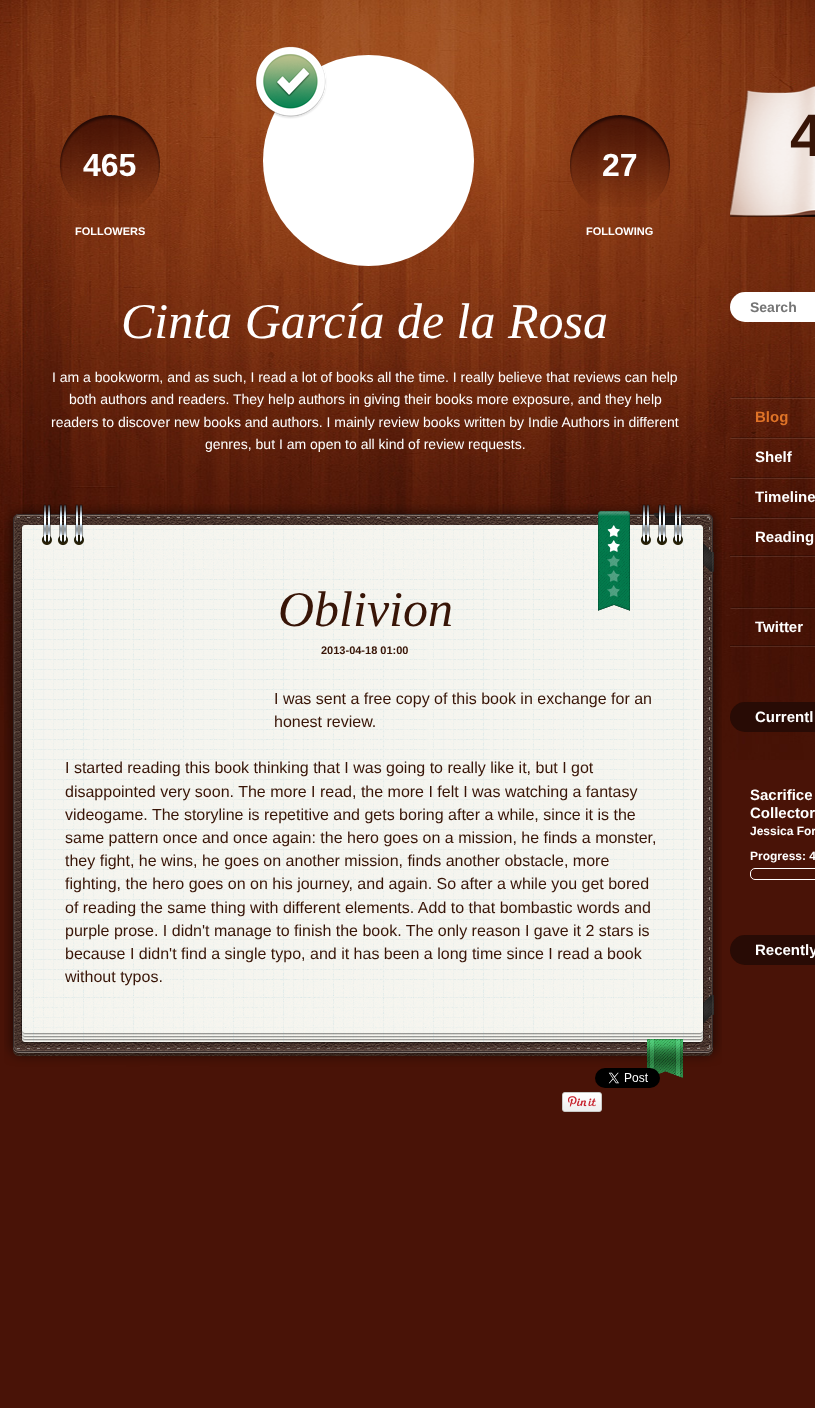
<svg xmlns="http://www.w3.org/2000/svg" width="815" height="1408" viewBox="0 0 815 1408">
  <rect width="100%" height="100%" fill="#491307"/>
  <image x="0" y="0" width="815" height="760" href="img/1.png"/>
  <image x="60" y="115" width="100" height="91" href="img/2.png"/>
  <circle cx="368.5" cy="160.5" r="105.5" fill="#fff"/>
  <image x="255" y="46" width="72" height="73" href="img/3.png"/>
  <image x="570" y="115" width="100" height="92" href="img/4.png"/>
  <image x="4" y="504" width="718" height="75" href="img/5.png"/>
  <image x="4" y="579" width="718" height="409" href="img/6.png"/>
  <image x="598" y="511" width="32" height="100" href="img/7.png"/>
  <image x="4" y="988" width="718" height="90" href="img/8.png"/>
  <image x="595" y="1068" width="65" height="20" href="img/9.png"/>
  <image x="562" y="1092" width="40" height="20" href="img/10.png"/>
  <image x="730" y="86" width="85" height="131" href="img/11.png"/>
  <rect x="730" y="292" width="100" height="30" rx="15" fill="#fff"/>
  <image x="730" y="555" width="85" height="2" href="img/12.png"/>
  <image x="730" y="397" width="85" height="2" href="img/13.png"/>
  <image x="730" y="437" width="85" height="2" href="img/14.png"/>
  <image x="730" y="477" width="85" height="2" href="img/15.png"/>
  <image x="730" y="517" width="85" height="2" href="img/16.png"/>
  <image x="730" y="645" width="85" height="2" href="img/17.png"/>
  <image x="730" y="607" width="85" height="2" href="img/18.png"/>
  <rect x="730" y="702" width="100" height="30" rx="15" fill="#280b05"/>
  <rect x="750.5" y="868.5" width="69" height="11" rx="4.5" fill="none" stroke="#fff"/>
  <rect x="730" y="935" width="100" height="30" rx="15" fill="#280b05"/>
  <text x="83" y="176" font-family="Liberation Sans" font-size="32" font-weight="bold" fill="#fff">465</text>
  <text x="75" y="235" font-family="Liberation Sans" font-size="11" font-weight="bold" fill="#fff">FOLLOWERS</text>
  <text x="602" y="176" font-family="Liberation Sans" font-size="32" font-weight="bold" fill="#fff">27</text>
  <text x="586" y="235" font-family="Liberation Sans" font-size="11" font-weight="bold" fill="#fff">FOLLOWING</text>
  <text x="121" y="338" font-family="Liberation Serif" font-size="50" font-style="italic" fill="#fff">Cinta García de la Rosa</text>
  <g font-family="Liberation Sans" font-size="14" fill="#fff">
    <text x="52" y="382">I am a bookworm, and as such, I read a lot of books all the time. I really believe that reviews can help</text>
    <text x="69" y="404">both authors and readers. They help authors in giving their books more exposure, and they help</text>
    <text x="51" y="427">readers to discover new books and authors. I mainly review books written by Indie Authors in different</text>
    <text x="205" y="449">genres, but I am open to all kind of review requests.</text>
  </g>
  <text x="278" y="626" font-family="Liberation Serif" font-size="50" font-style="italic" fill="#381507">Oblivion</text>
  <text x="321" y="654" font-family="Liberation Sans" font-size="11" font-weight="bold" fill="#381507">2013-04-18 01:00</text>
  <g font-family="Liberation Sans" font-size="16" fill="#381507">
    <text x="274" y="704">I was sent a free copy of this book in exchange for an</text>
    <text x="274" y="727">honest review.</text>
    <text x="65" y="773">I started reading this book thinking that I was going to really like it, but I got</text>
    <text x="65" y="797">disappointed very soon. The more I read, the more I felt I was watching a fantasy</text>
    <text x="65" y="820">videogame. The storyline is repetitive and gets boring after a while, since it is the</text>
    <text x="65" y="843">same pattern once and once again: the hero goes on a mission, he finds a monster,</text>
    <text x="65" y="866">they fight, he wins, he goes on another mission, finds another obstacle, more</text>
    <text x="65" y="889">fighting, the hero goes on on his journey, and again. So after a while you get bored</text>
    <text x="65" y="913">of reading the same thing with different elements. Add to that bombastic words and</text>
    <text x="65" y="936">purple prose. I didn't manage to finish the book. The only reason I gave it 2 stars is</text>
    <text x="65" y="959">because I didn't find a single typo, and it has been a long time since I read a book</text>
    <text x="65" y="982">without typos.</text>
  </g>
  <text x="790" y="156" font-family="Liberation Sans" font-size="60" font-weight="bold" fill="#381507">4</text>
  <text x="750" y="312" font-family="Liberation Sans" font-size="14" font-weight="bold" fill="#757575">Search</text>
  <text x="755" y="422" font-family="Liberation Sans" font-size="15" font-weight="bold" fill="#df7327">Blog</text>
  <g font-family="Liberation Sans" font-size="15" font-weight="bold" fill="#fff">
    <text x="755" y="462">Shelf</text>
    <text x="755" y="502">Timeline</text>
    <text x="755" y="542">Reading</text>
    <text x="755" y="632">Twitter</text>
    <text x="755" y="722">Currentl</text>
    <text x="750" y="800">Sacrifice</text>
    <text x="750" y="818">Collector</text>
  </g>
  <g font-family="Liberation Sans" font-size="12" font-weight="bold" fill="#fff">
    <text x="750" y="835">Jessica For</text>
    <text x="750" y="860">Progress: 4</text>
  </g>
  <text x="755" y="955" font-family="Liberation Sans" font-size="15" font-weight="bold" fill="#fff">Recently</text>
</svg>
